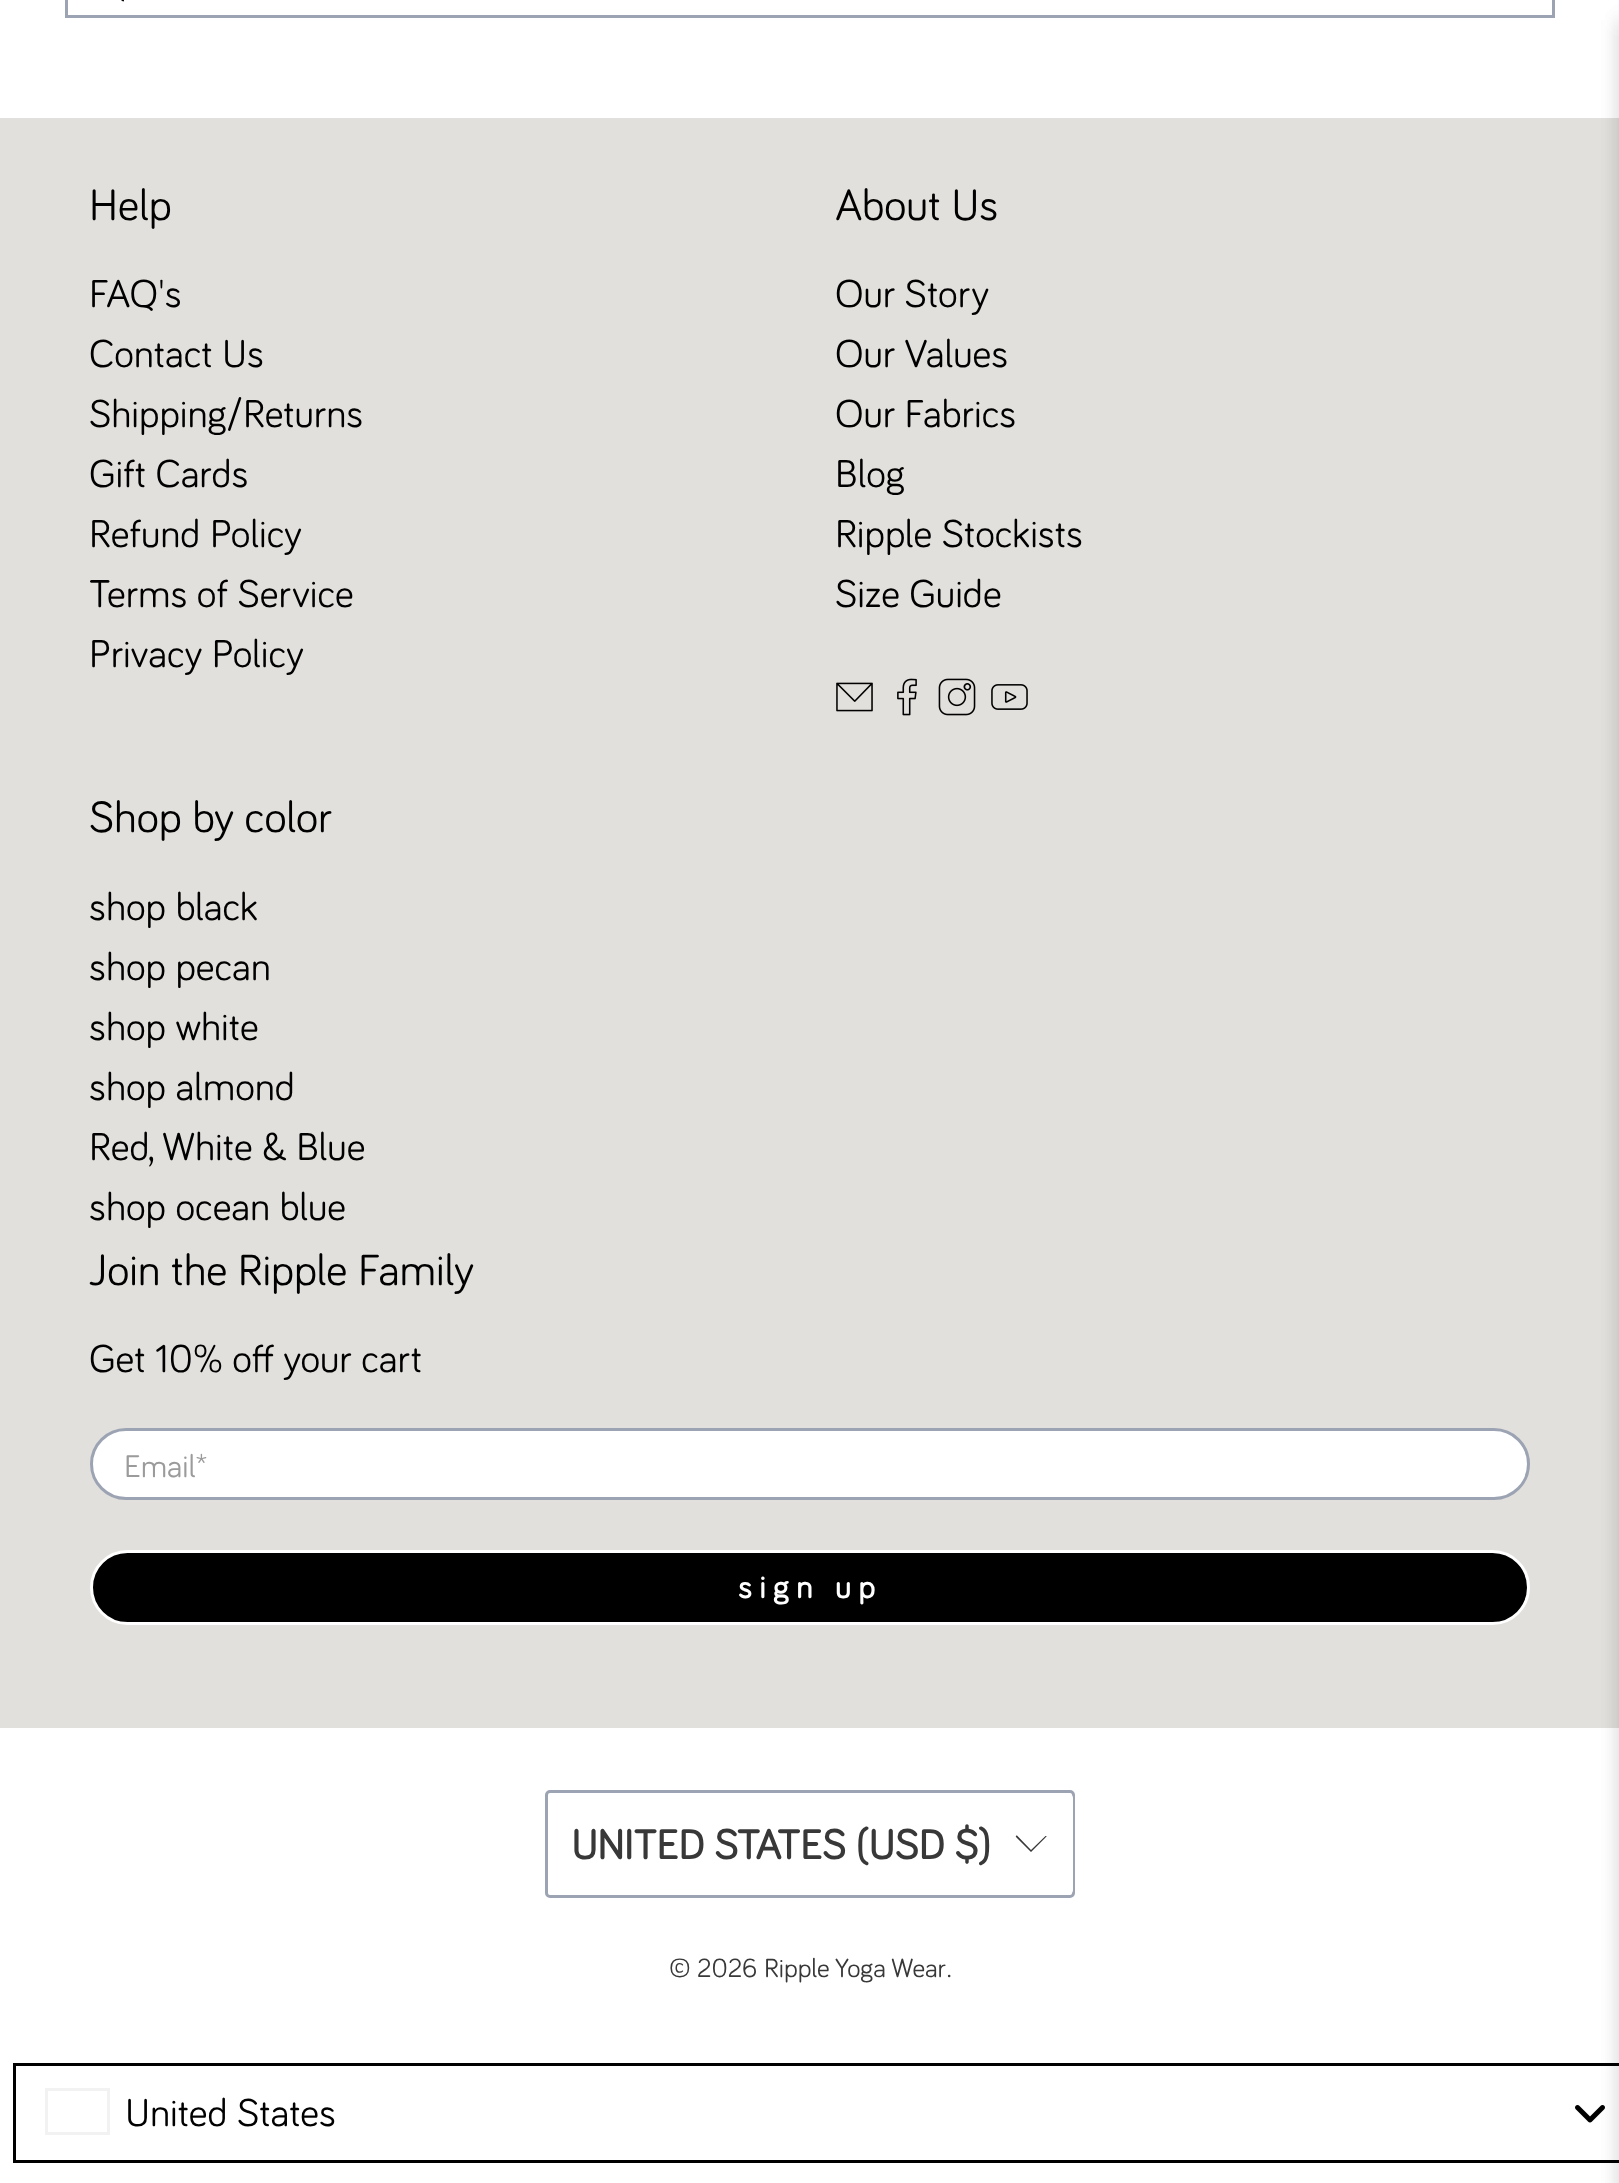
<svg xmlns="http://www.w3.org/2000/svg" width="1619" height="2183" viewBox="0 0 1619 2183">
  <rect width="100%" height="100%" fill="#fff"/>
  <path d="M66.5 -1.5h1487v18H66.5z" fill="none" stroke="#9ca3b3" stroke-width="3"/>
  <path d="M124 0L113-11C129-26 108-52 90-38C73-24 93 3 111-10L119-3C119-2 123 3 124 1ZM85-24C85-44 116-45 117-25C118-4 85-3 85-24Z" fill="#0a0a0a"/>
  <path d="M0 118h1619v1610H0z" fill="#e2e0dc"/>
  <image x="1575" y="2105" width="30" height="18" href="img/5.png"/>
  <path d="M14.5 2064.5h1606v97H14.5z" fill="none" stroke="#000" stroke-width="3"/>
  <path d="M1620 20h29v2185H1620z" fill="#0a0a0a1a" filter="blur(10px)"/>
  <image x="836" y="682" width="37" height="30" href="img/1.png"/>
  <image x="897" y="678" width="20" height="38" href="img/2.png"/>
  <image x="938" y="678" width="38" height="38" href="img/3.png"/>
  <image x="991" y="684" width="37" height="26" href="img/4.png"/>
  <rect x="91.5" y="1429.5" width="1437" height="69" rx="34.5" fill="#fff" stroke="#9ca3b3" stroke-width="3"/>
  <rect x="91.5" y="1551.5" width="1437" height="72" rx="36" fill="#000" stroke="#fff" stroke-width="3"/>
  <rect x="546.5" y="1791.5" width="527" height="105" rx="3.5" fill="none" stroke="#9ca3b3" stroke-width="3"/>
  <rect x="548" y="1793" width="525" height="102" rx="5" fill="#fff"/>
  <path d="M1046.5 1836H1045.5L1031 1850L1017 1835.5C1016 1835.5 1015.5 1836.5 1016 1837L1031 1852L1046.5 1836.5Z" fill="#383838"/>
  <path d="M46.5 2089.5h62v44H46.5z" fill="none" stroke="#f2f2f2" stroke-width="3"/>
  <path d="M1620 20h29v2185H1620z" fill="#0a0a0a1a" filter="blur(10px)"/>
  <text x="89" y="220" font-family="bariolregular" font-size="45" fill="#000">Help</text>
  <g font-family="bariolregular" font-size="40" fill="#000">
    <text x="89" y="307">FAQ's</text>
    <text x="89" y="367">Contact Us</text>
    <text x="89" y="427">Shipping/Returns</text>
    <text x="89" y="487">Gift Cards</text>
    <text x="89" y="547">Refund Policy</text>
    <text x="89" y="607">Terms of Service</text>
    <text x="89" y="667">Privacy Policy</text>
  </g>
  <text x="835" y="220" font-family="bariolregular" font-size="45" fill="#000">About Us</text>
  <g font-family="bariolregular" font-size="40" fill="#000">
    <text x="835" y="307">Our Story</text>
    <text x="835" y="367">Our Values</text>
    <text x="835" y="427">Our Fabrics</text>
    <text x="835" y="487">Blog</text>
    <text x="835" y="547">Ripple Stockists</text>
    <text x="835" y="607">Size Guide</text>
  </g>
  <text x="89" y="832" font-family="bariolregular" font-size="45" fill="#000">Shop by color</text>
  <g font-family="bariolregular" font-size="40" fill="#000">
    <text x="89" y="920">shop black</text>
    <text x="89" y="980">shop pecan</text>
    <text x="89" y="1040">shop white</text>
    <text x="89" y="1100">shop almond</text>
    <text x="89" y="1160">Red, White &amp; Blue</text>
    <text x="89" y="1220">shop ocean blue</text>
  </g>
  <text x="89" y="1285" font-family="bariolregular" font-size="45" fill="#000">Join the Ripple Family</text>
  <text x="89" y="1372" font-family="bariolregular" font-size="40" fill="#000">Get 10% off your cart</text>
  <text x="124" y="1477" font-family="bariolregular" font-size="32.5" fill="#9b9b9b">Email*</text>
  <text x="738" y="1598" font-family="bariolregular" font-size="32.5" font-weight="bold" letter-spacing="7.5" fill="#fff">sign up</text>
  <text x="571" y="1859" font-family="bariolregular" font-size="42.5" font-weight="bold" fill="#383838">UNITED STATES (USD $)</text>
  <g font-family="bariolregular" font-size="27" fill="#383838">
    <text x="669" y="1977">© 2026</text>
    <text x="764" y="1977" word-spacing="-1">Ripple Yoga Wear</text>
    <text x="947" y="1977">.</text>
  </g>
  <text x="125" y="2126" font-family="bariolregular" font-size="40" fill="#000">United States</text>
</svg>
